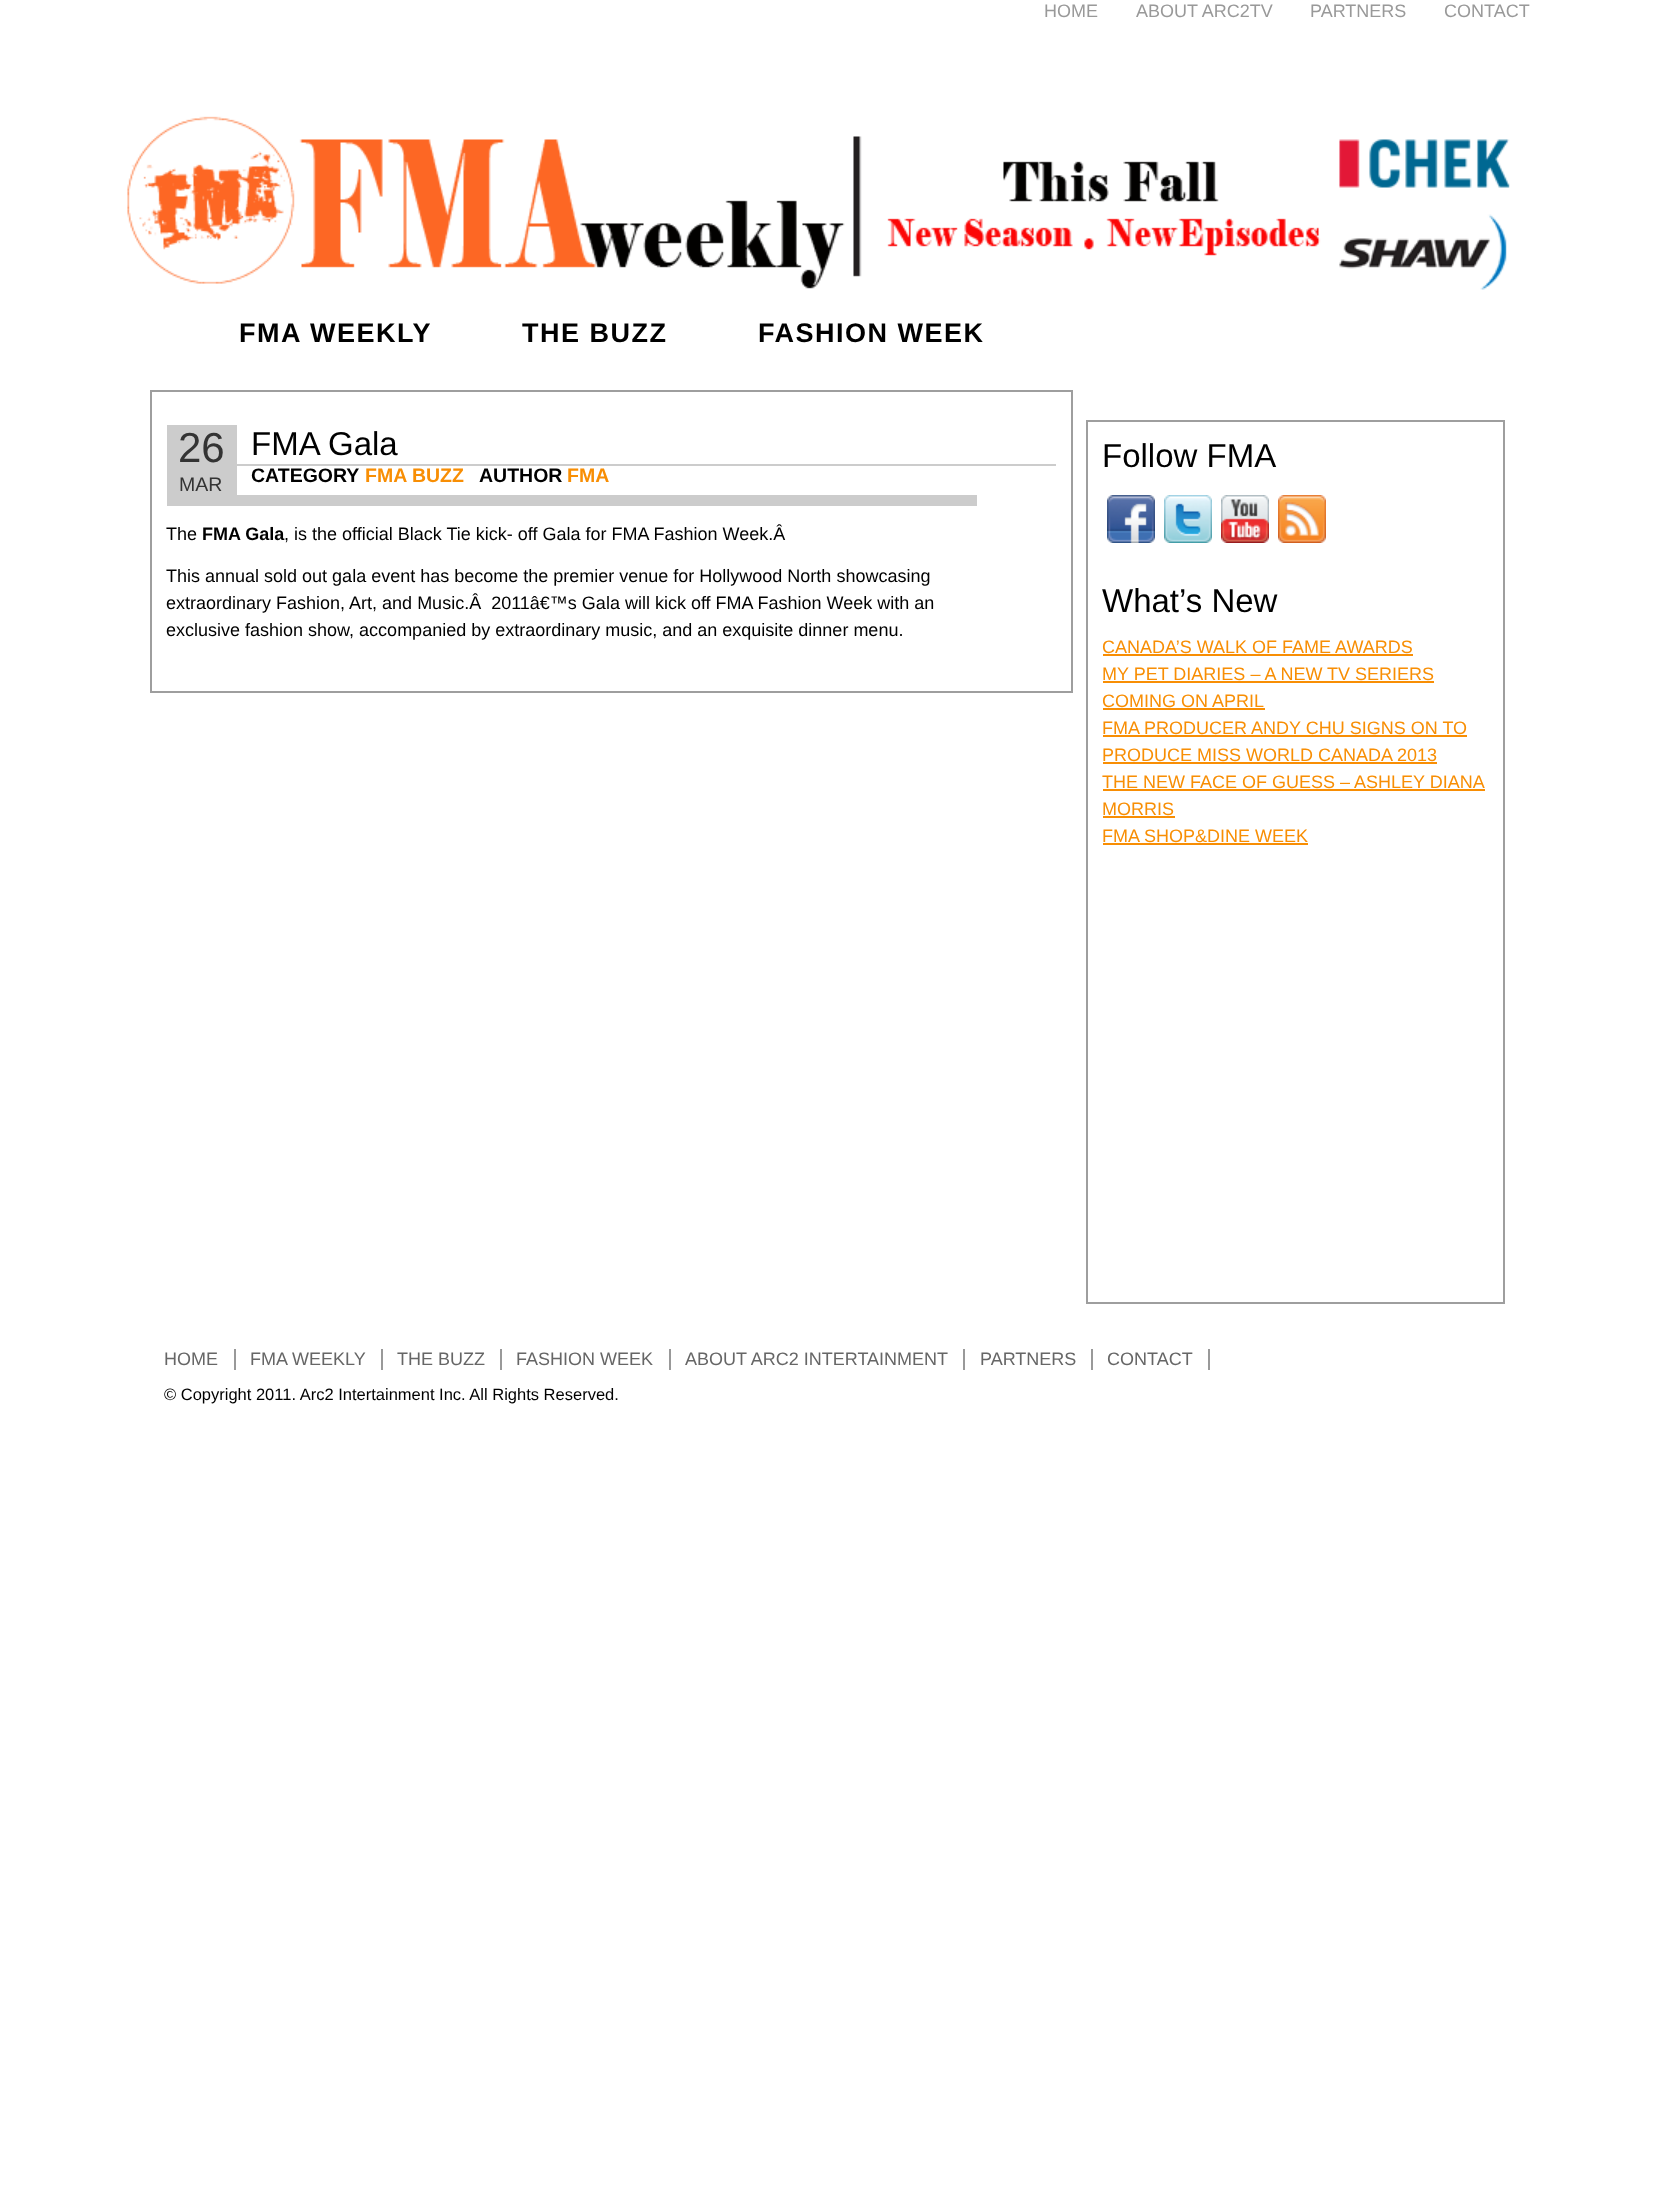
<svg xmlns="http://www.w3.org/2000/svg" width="1653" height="2205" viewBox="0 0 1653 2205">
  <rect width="100%" height="100%" fill="#fff"/>
  <image x="127" y="116" width="1383" height="174" href="img/1.png"/>
  <path d="M151 391h921v301H151z" fill="none" stroke="#9e9e9e" stroke-width="2"/>
  <path d="M237 464h819v2H237z" fill="#ccc"/>
  <path d="M167 425h70v70H167z" fill="#ccc"/>
  <path d="M167 495h810v11H167z" fill="#ccc"/>
  <path d="M1087 421h417v882H1087z" fill="none" stroke="#9e9e9e" stroke-width="2"/>
  <image x="1107" y="495" width="48" height="48" href="img/2.png"/>
  <image x="1164" y="495" width="48" height="48" href="img/3.png"/>
  <image x="1221" y="495" width="48" height="48" href="img/4.png"/>
  <image x="1278" y="495" width="48" height="48" href="img/5.png"/>
  <path d="M1103 654h310v2H1103z" fill="#f88e04"/>
  <path d="M1103 681h331v2H1103z" fill="#f88e04"/>
  <path d="M1103 708h162v2H1103z" fill="#f88e04"/>
  <path d="M1103 735h364v2H1103z" fill="#f88e04"/>
  <path d="M1103 762h334v2H1103z" fill="#f88e04"/>
  <path d="M1103 789h382v2H1103z" fill="#f88e04"/>
  <path d="M1103 816h72v2H1103z" fill="#f88e04"/>
  <path d="M1103 843h205v2H1103z" fill="#f88e04"/>
  <path d="M234 1349h2v21H234z" fill="#999"/>
  <path d="M381 1349h2v21H381z" fill="#999"/>
  <path d="M500 1349h2v21H500z" fill="#999"/>
  <path d="M669 1349h2v21H669z" fill="#999"/>
  <path d="M963 1349h2v21H963z" fill="#999"/>
  <path d="M1091 1349h2v21H1091z" fill="#999"/>
  <path d="M1208 1349h2v21H1208z" fill="#999"/>
  <g font-family="Liberation Sans" font-size="18" fill="#999">
    <text x="1044" y="17">HOME</text>
    <text x="1136" y="17">ABOUT ARC2TV</text>
    <text x="1310" y="17">PARTNERS</text>
    <text x="1444" y="17">CONTACT</text>
  </g>
  <g font-family="Liberation Sans" font-size="27" font-weight="bold" letter-spacing="1.5" fill="#000">
    <text x="239" y="342">FMA WEEKLY</text>
    <text x="522" y="342">THE BUZZ</text>
    <text x="758" y="342">FASHION WEEK</text>
  </g>
  <text x="178" y="462" font-family="Liberation Sans" font-size="42" fill="#333">26</text>
  <text x="179" y="491" font-family="Liberation Sans" font-size="19.5" fill="#333">MAR</text>
  <text x="251" y="455" font-family="Liberation Sans" font-size="33" fill="#000">FMA Gala</text>
  <text x="251" y="482" font-family="Liberation Sans" font-size="19.5" font-weight="bold" fill="#000">CATEGORY</text>
  <text x="365" y="482" font-family="Liberation Sans" font-size="19.5" font-weight="bold" fill="#f88e04">FMA BUZZ</text>
  <text x="479" y="482" font-family="Liberation Sans" font-size="19.5" font-weight="bold" fill="#000">AUTHOR</text>
  <text x="567" y="482" font-family="Liberation Sans" font-size="19.5" font-weight="bold" fill="#f88e04">FMA</text>
  <text x="166" y="540" font-family="Liberation Sans" font-size="18" fill="#000">The</text>
  <text x="202" y="540" font-family="Liberation Sans" font-size="18" font-weight="bold" fill="#000">FMA Gala</text>
  <g font-family="Liberation Sans" font-size="18" fill="#000">
    <text x="284" y="540">, is the official Black Tie kick- off Gala for FMA Fashion Week.Â</text>
    <text x="166" y="582">This annual sold out gala event has become the premier venue for Hollywood North showcasing</text>
    <text x="166" y="609" xml:space="preserve">extraordinary Fashion, Art, and Music.Â  2011â€™s Gala will kick off FMA Fashion Week with an</text>
    <text x="166" y="636">exclusive fashion show, accompanied by extraordinary music, and an exquisite dinner menu.</text>
  </g>
  <g font-family="Liberation Sans" font-size="33" fill="#000">
    <text x="1102" y="467">Follow FMA</text>
    <text x="1102" y="612">What’s New</text>
  </g>
  <g font-family="Liberation Sans" font-size="18" fill="#f88e04">
    <text x="1102" y="653">CANADA’S WALK OF FAME AWARDS</text>
    <text x="1102" y="680">MY PET DIARIES – A NEW TV SERIERS</text>
    <text x="1102" y="707">COMING ON APRIL</text>
    <text x="1102" y="734">FMA PRODUCER ANDY CHU SIGNS ON TO</text>
    <text x="1102" y="761">PRODUCE MISS WORLD CANADA 2013</text>
    <text x="1102" y="788">THE NEW FACE OF GUESS – ASHLEY DIANA</text>
    <text x="1102" y="815">MORRIS</text>
    <text x="1102" y="842">FMA SHOP&amp;DINE WEEK</text>
  </g>
  <g font-family="Liberation Sans" font-size="18" fill="#666">
    <text x="164" y="1365">HOME</text>
    <text x="250" y="1365">FMA WEEKLY</text>
    <text x="397" y="1365">THE BUZZ</text>
    <text x="516" y="1365">FASHION WEEK</text>
    <text x="685" y="1365">ABOUT ARC2 INTERTAINMENT</text>
    <text x="980" y="1365">PARTNERS</text>
    <text x="1107" y="1365">CONTACT</text>
  </g>
  <text x="164" y="1400" font-family="Liberation Sans" font-size="16.5" fill="#000">© Copyright 2011. Arc2 Intertainment Inc. All Rights Reserved.</text>
</svg>
